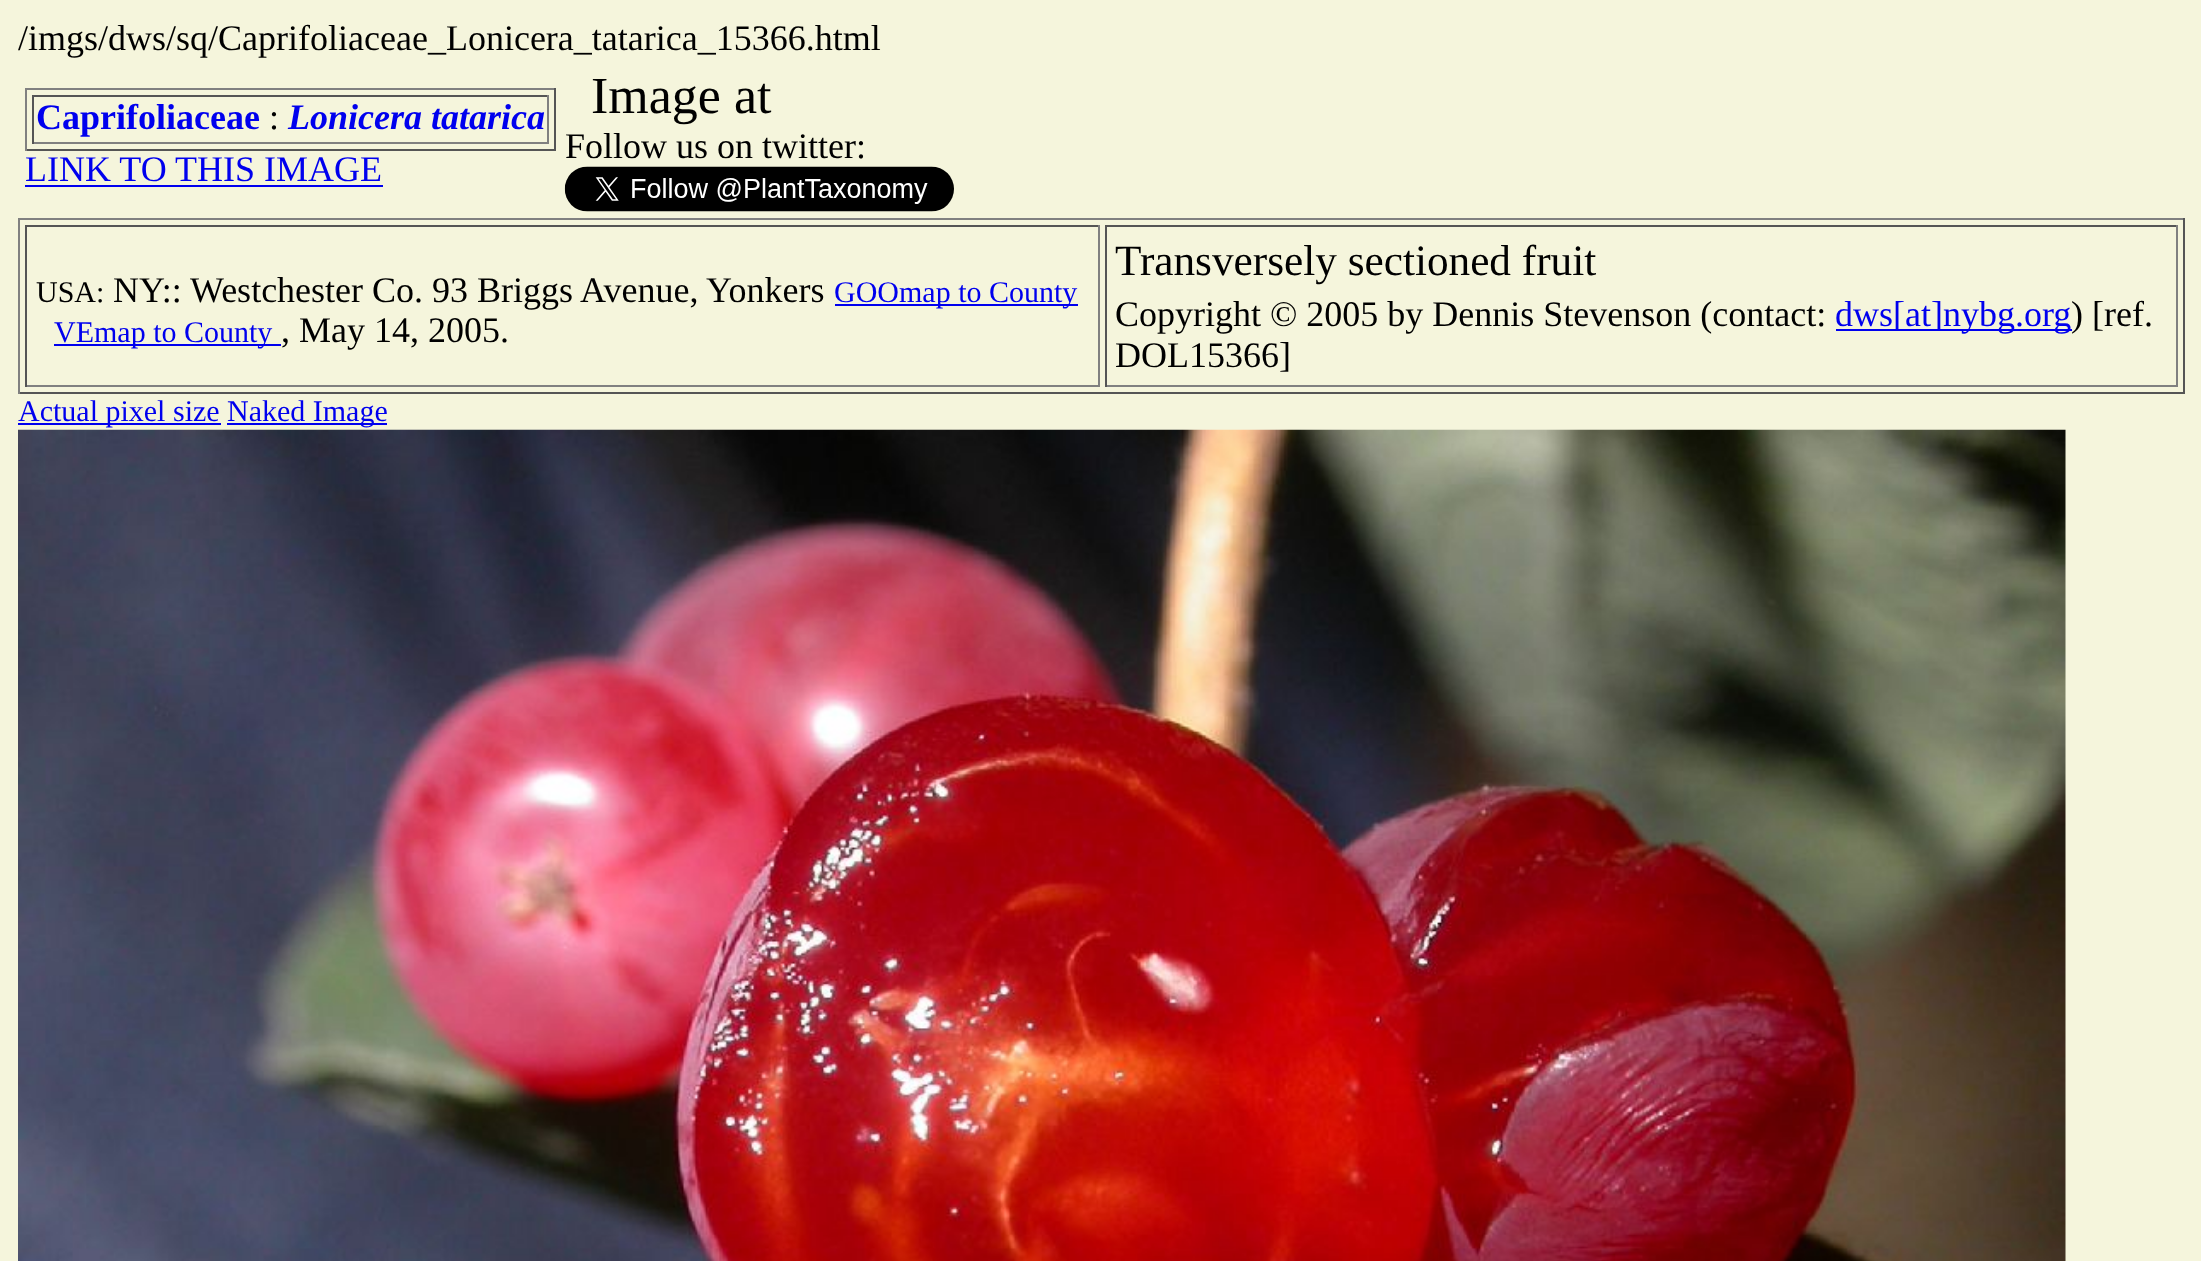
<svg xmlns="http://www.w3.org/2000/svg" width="2201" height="1261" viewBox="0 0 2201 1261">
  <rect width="100%" height="100%" fill="#f5f5dc"/>
  <path d="M25 88h531v2H25z" fill="#808080"/>
  <path d="M554 88h2v63H554z" fill="#555"/>
  <path d="M25 149h531v2H25z" fill="#555"/>
  <path d="M25 88h2v63H25z" fill="#808080"/>
  <path d="M32 95h517v2H32z" fill="#555"/>
  <path d="M547 95h2v49H547z" fill="#808080"/>
  <path d="M32 142h517v2H32z" fill="#808080"/>
  <path d="M32 95h2v49H32z" fill="#555"/>
  <path d="M25 185h358v2H25z" fill="#00e"/>
  <image x="564" y="166" width="390" height="46" href="img/1.png"/>
  <path d="M18 218h2167v2H18z" fill="#808080"/>
  <path d="M2183 218h2v176H2183z" fill="#555"/>
  <path d="M18 392h2167v2H18z" fill="#555"/>
  <path d="M18 218h2v176H18z" fill="#808080"/>
  <path d="M25 225h1075v2H25z" fill="#555"/>
  <path d="M1098 225h2v162H1098z" fill="#808080"/>
  <path d="M25 385h1075v2H25z" fill="#808080"/>
  <path d="M25 225h2v162H25z" fill="#555"/>
  <path d="M835 304h243v2H835z" fill="#00e"/>
  <path d="M54 344h218v2H54z" fill="#00e"/>
  <path d="M272 344h9v2H272z" fill="#00e"/>
  <path d="M1105 225h1073v2H1105z" fill="#555"/>
  <path d="M2176 225h2v162H2176z" fill="#808080"/>
  <path d="M1105 385h1073v2H1105z" fill="#808080"/>
  <path d="M1105 225h2v162H1105z" fill="#555"/>
  <path d="M1836 329h236v2H1836z" fill="#00e"/>
  <path d="M18 423h203v2H18z" fill="#00e"/>
  <path d="M227 423h160v2H227z" fill="#00e"/>
  <image x="18" y="429" width="2048" height="832" href="img/2.png"/>
  <text x="18" y="50" font-family="Liberation Serif" font-size="36" fill="#000">/imgs/dws/sq/Caprifoliaceae_Lonicera_tatarica_15366.html</text>
  <text x="36" y="129" font-family="Liberation Serif" font-size="36" font-weight="bold" fill="#00e">Caprifoliaceae</text>
  <text x="269" y="129" font-family="Liberation Serif" font-size="36" fill="#000">:</text>
  <text x="288" y="129" font-family="Liberation Serif" font-size="36" font-weight="bold" font-style="italic" fill="#00e">Lonicera tatarica</text>
  <text x="25" y="181" font-family="Liberation Serif" font-size="36" fill="#00e">LINK TO THIS IMAGE</text>
  <text x="591" y="113" font-family="Liberation Serif" font-size="52" fill="#000">Image at</text>
  <text x="565" y="158" font-family="Liberation Serif" font-size="36" fill="#000">Follow us on twitter:</text>
  <text x="36" y="302" font-family="Liberation Serif" font-size="30" fill="#000">USA:</text>
  <text x="113" y="302" font-family="Liberation Serif" font-size="36" fill="#000">NY:: Westchester Co. 93 Briggs Avenue, Yonkers</text>
  <g font-family="Liberation Serif" font-size="30" fill="#00e">
    <text x="834" y="302">GOOmap to County</text>
    <text x="54" y="342">VEmap to County</text>
  </g>
  <text x="281" y="342" font-family="Liberation Serif" font-size="36" fill="#000">, May 14, 2005.</text>
  <text x="1115" y="275" font-family="Liberation Serif" font-size="43.25" fill="#000">Transversely sectioned fruit</text>
  <text x="1115" y="326" font-family="Liberation Serif" font-size="36" fill="#000">Copyright © 2005 by Dennis Stevenson (contact:</text>
  <text x="1835" y="326" font-family="Liberation Serif" font-size="36" fill="#00e">dws[at]nybg.org</text>
  <g font-family="Liberation Serif" font-size="36" fill="#000">
    <text x="2071" y="326">) [ref.</text>
    <text x="1115" y="367">DOL15366]</text>
  </g>
  <g font-family="Liberation Serif" font-size="30" fill="#00e">
    <text x="18" y="421">Actual pixel size</text>
    <text x="227" y="421">Naked Image</text>
  </g>
</svg>
